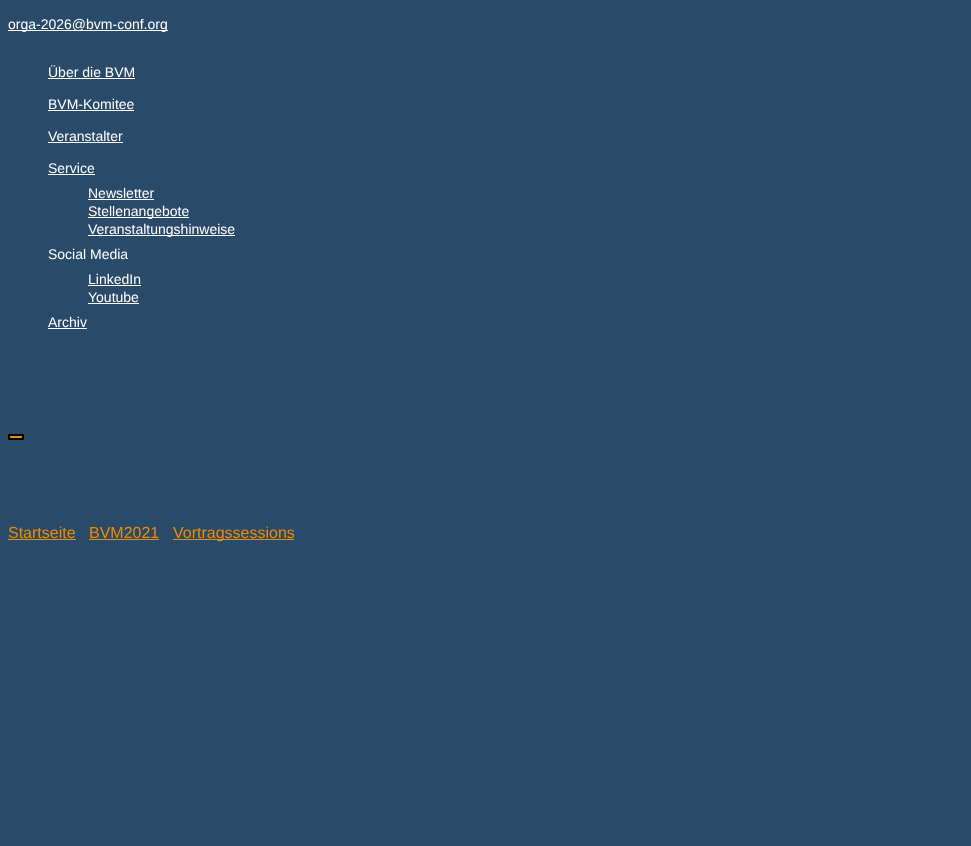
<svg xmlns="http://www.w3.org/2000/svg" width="971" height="846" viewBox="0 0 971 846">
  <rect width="100%" height="100%" fill="#2a4a6a"/>
  <path d="M8 30h160v1H8z" fill="#fff"/>
  <path d="M48 78h87v1H48z" fill="#fff"/>
  <path d="M48 110h86v1H48z" fill="#fff"/>
  <path d="M48 142h75v1H48z" fill="#fff"/>
  <path d="M48 174h47v1H48z" fill="#fff"/>
  <path d="M88 199h66v1H88z" fill="#fff"/>
  <path d="M88 217h101v1H88z" fill="#fff"/>
  <path d="M88 235h147v1H88z" fill="#fff"/>
  <path d="M88 285h53v1H88z" fill="#fff"/>
  <path d="M88 303h51v1H88z" fill="#fff"/>
  <path d="M48 328h39v1H48z" fill="#fff"/>
  <path d="M9 435h14v4H9z" fill="#f08c00" stroke="#000" stroke-width="2"/>
  <path d="M8 539h68v1H8z" fill="#f08c00"/>
  <path d="M89 539h70v1H89z" fill="#f08c00"/>
  <path d="M173 539h121v1H173z" fill="#f08c00"/>
  <g font-family="Liberation Sans" font-size="14" fill="#fff">
    <text x="8" y="29">orga-2026@bvm-conf.org</text>
    <text x="48" y="77">Über die BVM</text>
    <text x="48" y="109">BVM-Komitee</text>
    <text x="48" y="141">Veranstalter</text>
    <text x="48" y="173">Service</text>
    <text x="88" y="198">Newsletter</text>
    <text x="88" y="216">Stellenangebote</text>
    <text x="88" y="234">Veranstaltungshinweise</text>
    <text x="48" y="259">Social Media</text>
    <text x="88" y="284">LinkedIn</text>
    <text x="88" y="302">Youtube</text>
    <text x="48" y="327">Archiv</text>
  </g>
  <g font-family="Liberation Sans" font-size="16" fill="#f08c00">
    <text x="8" y="538">Startseite</text>
    <text x="89" y="538">BVM2021</text>
    <text x="173" y="538">Vortragssessions</text>
  </g>
</svg>
